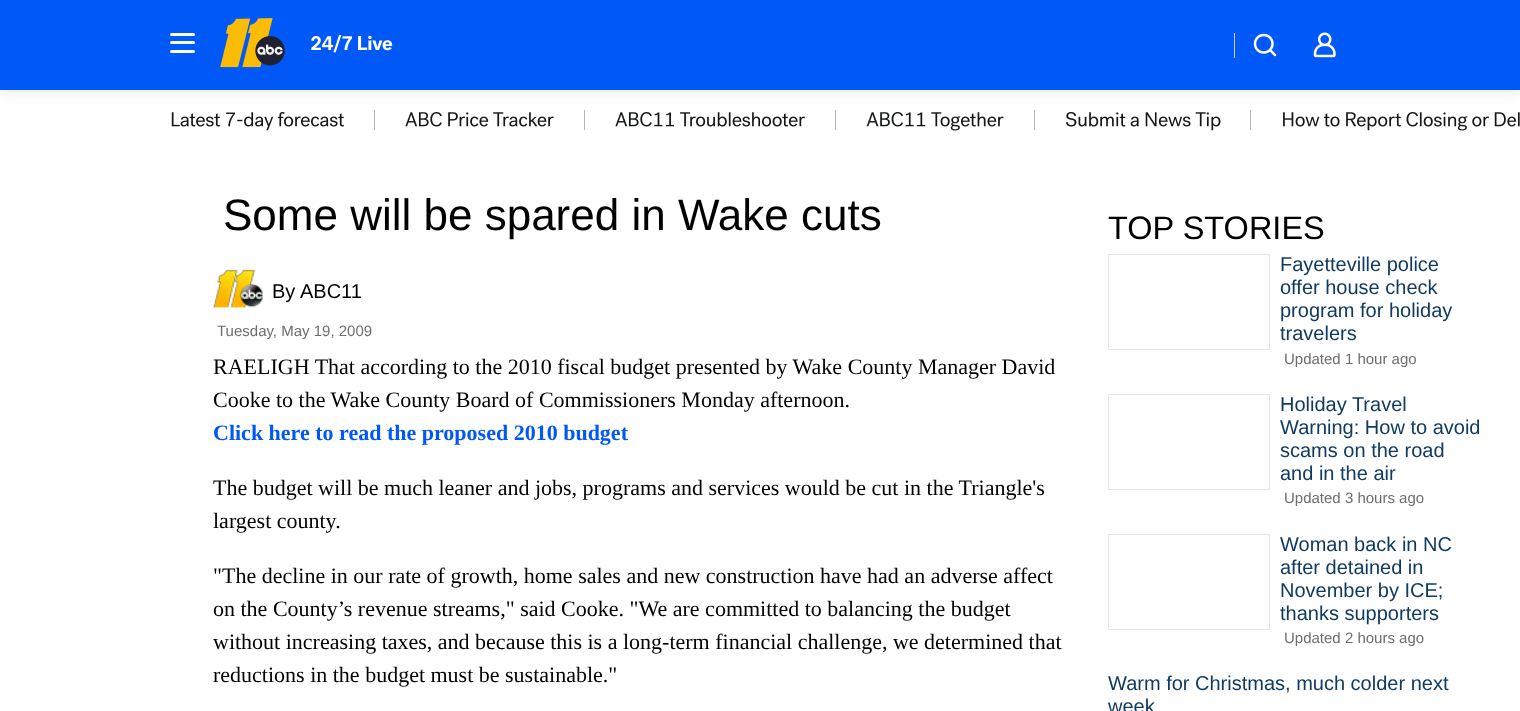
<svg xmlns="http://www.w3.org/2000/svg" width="1520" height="711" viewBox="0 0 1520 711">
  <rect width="100%" height="100%" fill="#fff"/>
  <path d="M374 110h1v20H374z" fill="#b0b5be"/>
  <path d="M584 110h1v20H584z" fill="#b0b5be"/>
  <path d="M835 110h1v20H835z" fill="#b0b5be"/>
  <path d="M1034 110h1v20H1034z" fill="#b0b5be"/>
  <path d="M1250 110h1v20H1250z" fill="#b0b5be"/>
  <path d="M0 3h1520v90H0z" fill="#00000014" filter="blur(6px)"/>
  <path d="M0 0h1520v90H0z" fill="#0058f6"/>
  <rect x="170" y="41" width="25" height="3" rx="1.5" fill="#fff"/>
  <rect x="170" y="33" width="25" height="3" rx="1.5" fill="#fff"/>
  <rect x="170" y="50" width="25" height="3" rx="1.5" fill="#fff"/>
  <image x="220" y="18" width="65" height="50" href="img/1.png"/>
  <image x="311" y="34" width="82" height="19" href="img/2.png"/>
  <path d="M1234 33h1v25H1234z" fill="#cecfcf"/>
  <image x="1253" y="33" width="24" height="24" href="img/3.png"/>
  <image x="1313" y="32" width="23" height="26" href="img/4.png"/>
  <image x="171" y="112" width="173" height="19" href="img/5.png"/>
  <image x="405" y="112" width="149" height="15" href="img/6.png"/>
  <image x="615" y="112" width="190" height="15" href="img/7.png"/>
  <image x="866" y="112" width="138" height="19" href="img/8.png"/>
  <image x="1066" y="112" width="155" height="19" href="img/9.png"/>
  <image x="1283" y="112" width="237" height="19" href="img/10.png"/>
  <image x="213" y="269" width="50" height="39" href="img/11.png"/>
  <path d="M1108.5 254.5h161v95H1108.5z" fill="none" stroke="#e4e4e4"/>
  <path d="M1108.5 394.5h161v95H1108.5z" fill="none" stroke="#e4e4e4"/>
  <path d="M1108.5 534.5h161v95H1108.5z" fill="none" stroke="#e4e4e4"/>
  <text x="223" y="230" font-family="Liberation Sans" font-size="44" fill="#000">Some will be spared in Wake cuts</text>
  <g font-family="Liberation Sans" font-size="20" fill="#000">
    <text x="272" y="298">By</text>
    <text x="300" y="298">ABC11</text>
  </g>
  <text x="217" y="336" font-family="Liberation Sans" font-size="15" fill="#6e6e6e">Tuesday, May 19, 2009</text>
  <g font-family="Liberation Serif" font-size="22" fill="#000">
    <text x="213" y="374">RAELIGH That according to the 2010 fiscal budget presented by Wake County Manager David</text>
    <text x="213" y="407">Cooke to the Wake County Board of Commissioners Monday afternoon.</text>
  </g>
  <text x="213" y="440" font-family="Liberation Serif" font-size="22" font-weight="bold" fill="#0058f6">Click here to read the proposed 2010 budget</text>
  <g font-family="Liberation Serif" font-size="22" fill="#000">
    <text x="213" y="495">The budget will be much leaner and jobs, programs and services would be cut in the Triangle's</text>
    <text x="213" y="528">largest county.</text>
    <text x="213" y="583">"The decline in our rate of growth, home sales and new construction have had an adverse affect</text>
    <text x="213" y="616">on the County’s revenue streams," said Cooke. "We are committed to balancing the budget</text>
    <text x="213" y="649">without increasing taxes, and because this is a long-term financial challenge, we determined that</text>
    <text x="213" y="682">reductions in the budget must be sustainable."</text>
  </g>
  <text x="1108" y="239" font-family="Liberation Sans" font-size="32.5" fill="#000">TOP STORIES</text>
  <g font-family="Liberation Sans" font-size="20" fill="#103b61">
    <text x="1280" y="271">Fayetteville police</text>
    <text x="1280" y="294">offer house check</text>
    <text x="1280" y="317">program for holiday</text>
    <text x="1280" y="340">travelers</text>
  </g>
  <text x="1284" y="364" font-family="Liberation Sans" font-size="15" fill="#6e6e6e">Updated 1 hour ago</text>
  <g font-family="Liberation Sans" font-size="20" fill="#103b61">
    <text x="1280" y="411">Holiday Travel</text>
    <text x="1280" y="434">Warning: How to avoid</text>
    <text x="1280" y="457">scams on the road</text>
    <text x="1280" y="480">and in the air</text>
  </g>
  <text x="1284" y="503" font-family="Liberation Sans" font-size="15" fill="#6e6e6e">Updated 3 hours ago</text>
  <g font-family="Liberation Sans" font-size="20" fill="#103b61">
    <text x="1280" y="551">Woman back in NC</text>
    <text x="1280" y="574">after detained in</text>
    <text x="1280" y="597">November by ICE;</text>
    <text x="1280" y="620">thanks supporters</text>
  </g>
  <text x="1284" y="643" font-family="Liberation Sans" font-size="15" fill="#6e6e6e">Updated 2 hours ago</text>
  <g font-family="Liberation Sans" font-size="20" fill="#103b61">
    <text x="1108" y="690">Warm for Christmas, much colder next</text>
    <text x="1108" y="713">week</text>
  </g>
</svg>
